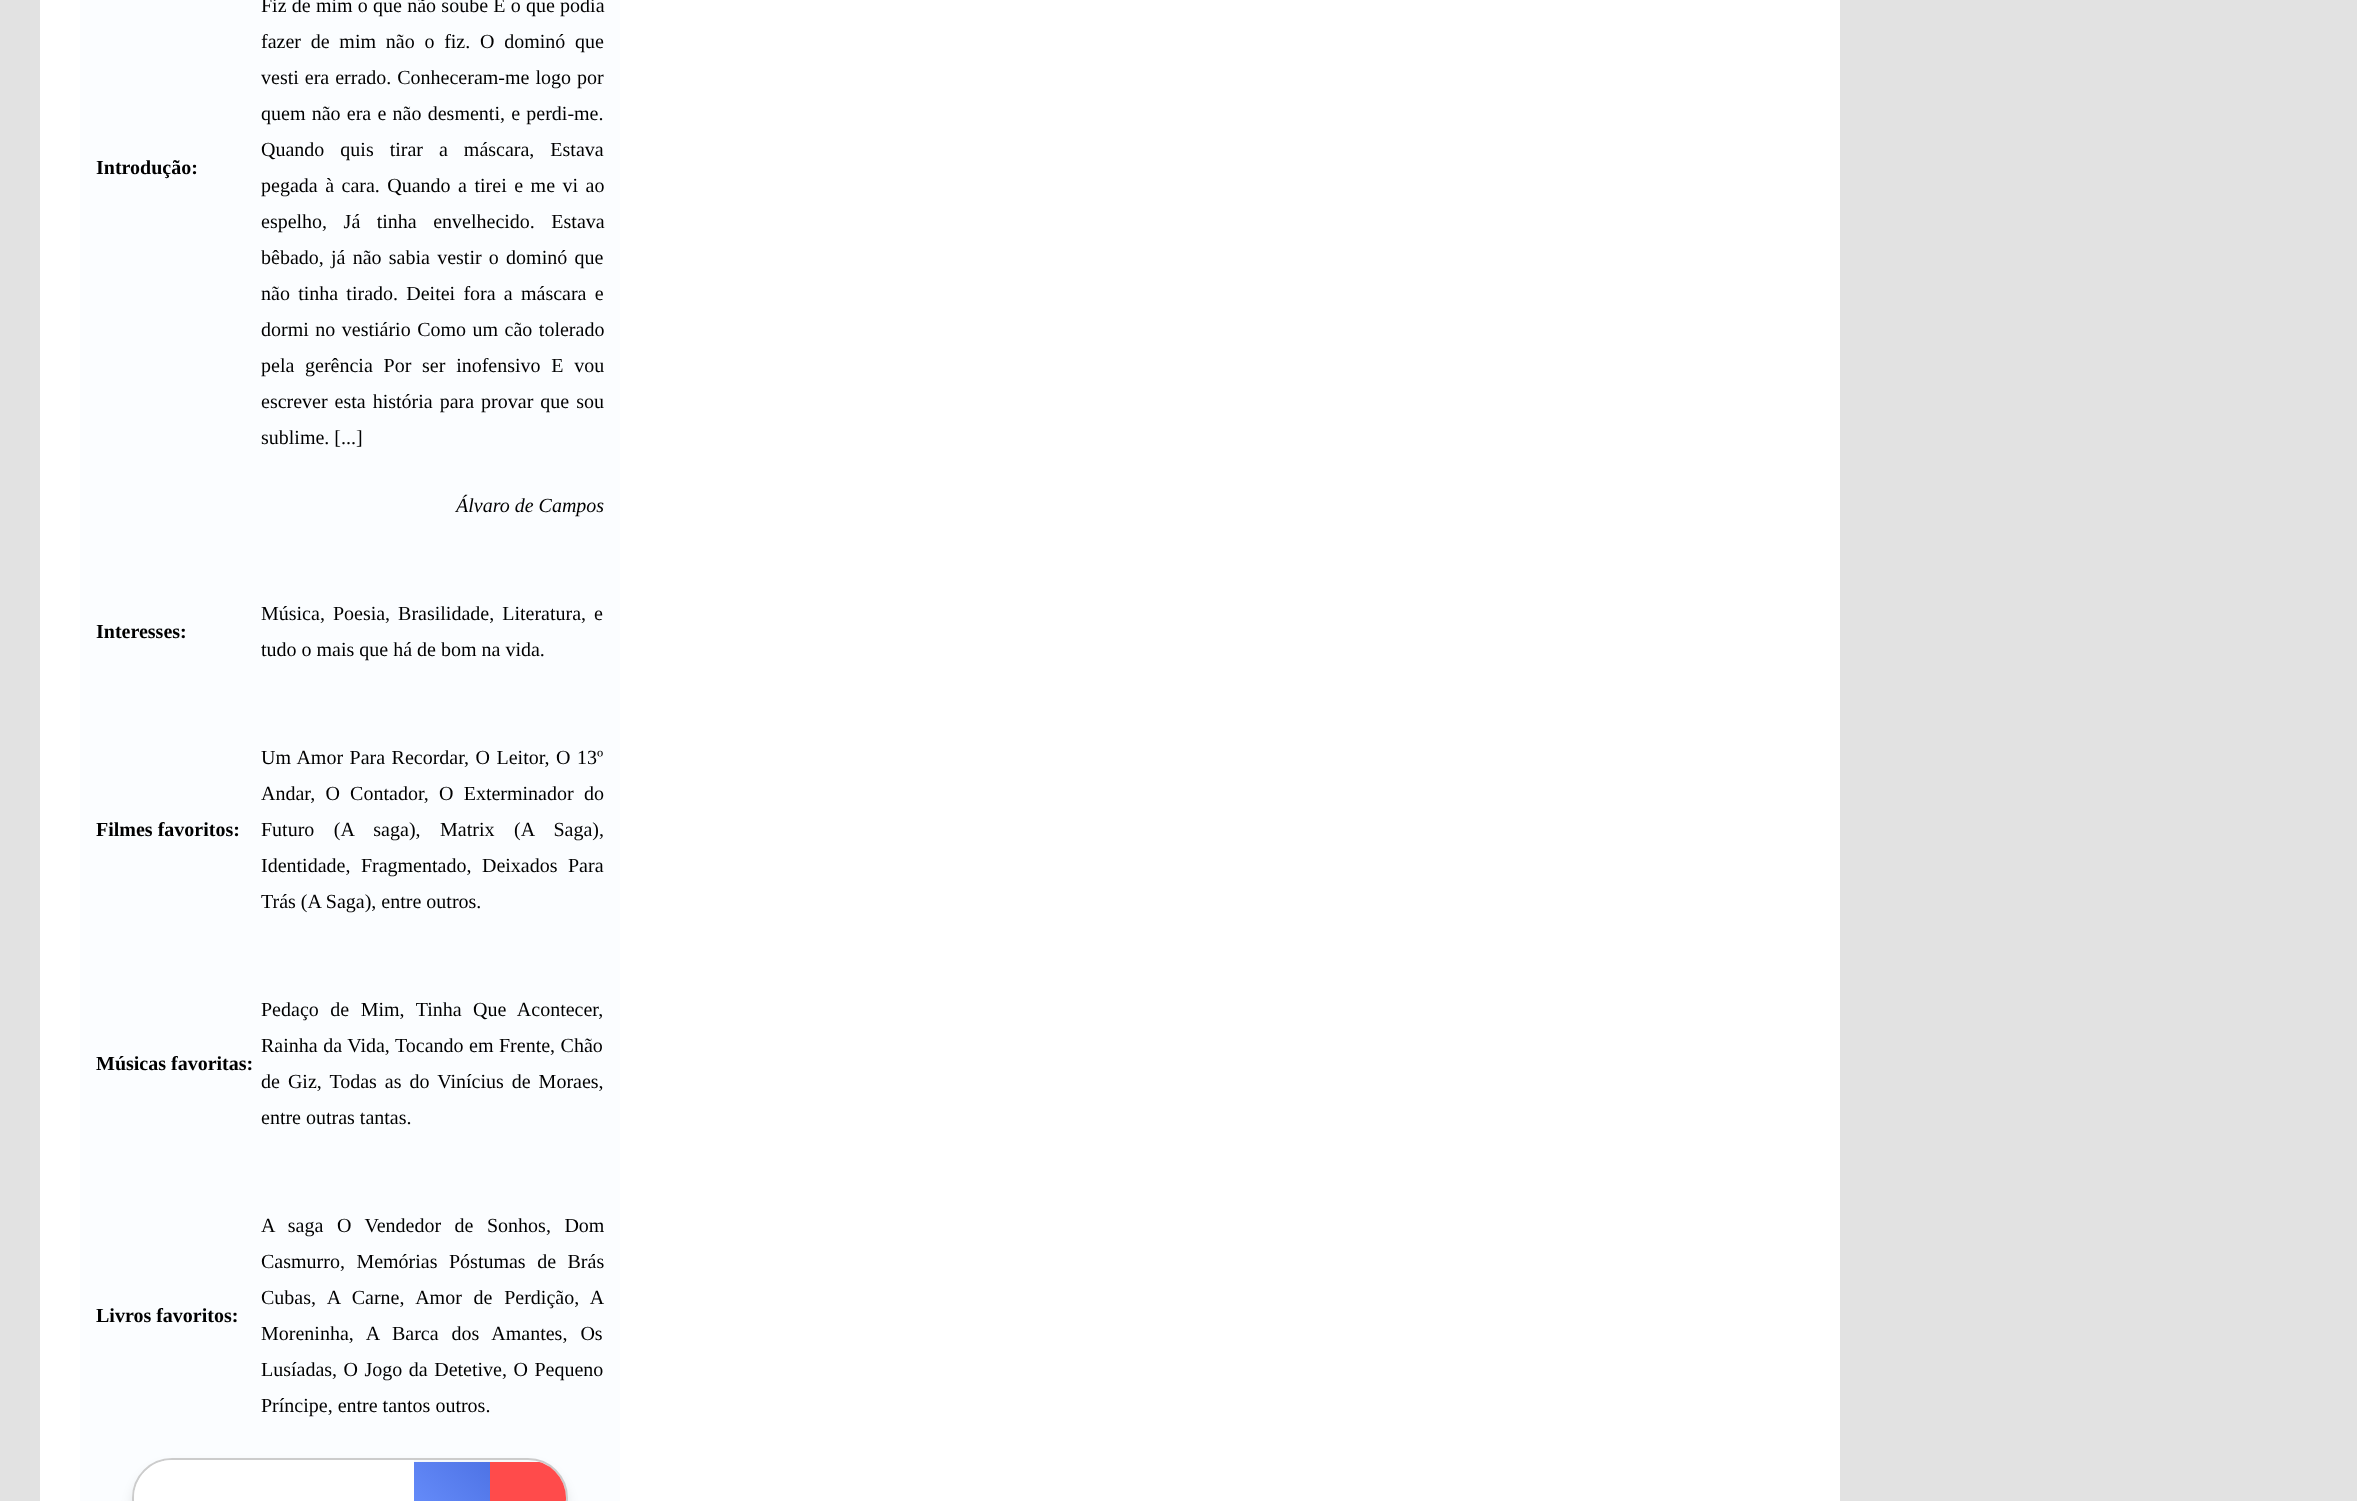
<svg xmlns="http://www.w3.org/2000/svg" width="2357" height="1501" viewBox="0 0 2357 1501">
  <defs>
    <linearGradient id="g1" gradientUnits="userSpaceOnUse" x1="415" y1="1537" x2="490" y2="1462"><stop offset="0" stop-color="#6b92ff"/><stop offset="1" stop-color="#4e73e5"/></linearGradient>
    <clipPath id="clip1"><rect x="134" y="1460" width="432" height="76" rx="38"/></clipPath>
  </defs>
  <rect width="100%" height="100%" fill="#e2e2e2"/>
  <path d="M40 0h1800v1501H40z" fill="#fff"/>
  <path d="M80 0h540v1501H80z" fill="#fbfdff"/>
  <rect x="132" y="1466" width="436" height="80" rx="40" fill="#0000001a" filter="blur(6px)"/>
  <rect x="133" y="1459" width="434" height="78" rx="39" fill="none" stroke="#ccc" stroke-width="2"/>
  <path d="M172 1460H414V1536H172C151 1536 134 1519 134 1498C134 1477 151 1460 172 1460Z" fill="#fff"/>
  <path d="M414 1462h76v39H414z" fill="url(#g1)"/>
  <g clip-path="url(#clip1)">
    <path d="M490 1462H566V1498C566 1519 549 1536 528 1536H490Z" fill="#ff4b4b"/>
  </g>
  <text x="96" y="174" font-family="Liberation Serif" font-size="20" font-weight="bold" fill="#000">Introdução:</text>
  <g font-family="Liberation Serif" font-size="20" fill="#000">
    <text x="261" y="12" word-spacing="0.25">Fiz de mim o que não soube E o que podia</text>
    <text x="261" y="48" word-spacing="4.75">fazer de mim não o fiz. O dominó que</text>
    <text x="261" y="84" word-spacing="1">vesti era errado. Conheceram-me logo por</text>
    <text x="261" y="120" word-spacing="1.25">quem não era e não desmenti, e perdi-me.</text>
    <text x="261" y="156" word-spacing="11">Quando quis tirar a máscara, Estava</text>
    <text x="261" y="192" word-spacing="2.5">pegada à cara. Quando a tirei e me vi ao</text>
    <text x="261" y="228" word-spacing="11.5">espelho, Já tinha envelhecido. Estava</text>
    <text x="261" y="264" word-spacing="2.25">bêbado, já não sabia vestir o dominó que</text>
    <text x="261" y="300" word-spacing="3.25">não tinha tirado. Deitei fora a máscara e</text>
    <text x="261" y="336" word-spacing="1.5">dormi no vestiário Como um cão tolerado</text>
    <text x="261" y="372" word-spacing="5.75">pela gerência Por ser inofensivo E vou</text>
    <text x="261" y="408" word-spacing="2">escrever esta história para provar que sou</text>
    <text x="261" y="444">sublime. [...]</text>
  </g>
  <text x="456" y="512" font-family="Liberation Serif" font-size="20" font-style="italic" fill="#000">Álvaro de Campos</text>
  <text x="96" y="638" font-family="Liberation Serif" font-size="20" font-weight="bold" fill="#000">Interesses:</text>
  <g font-family="Liberation Serif" font-size="20" fill="#000">
    <text x="261" y="620" word-spacing="3">Música, Poesia, Brasilidade, Literatura, e</text>
    <text x="261" y="656">tudo o mais que há de bom na vida.</text>
  </g>
  <text x="96" y="836" font-family="Liberation Serif" font-size="20" font-weight="bold" fill="#000">Filmes favoritos:</text>
  <g font-family="Liberation Serif" font-size="20" fill="#000">
    <text x="261" y="764" word-spacing="1.5">Um Amor Para Recordar, O Leitor, O 13º</text>
    <text x="261" y="800" word-spacing="5.25">Andar, O Contador, O Exterminador do</text>
    <text x="261" y="836" word-spacing="14.5">Futuro (A saga), Matrix (A Saga),</text>
    <text x="261" y="872" word-spacing="5.5">Identidade, Fragmentado, Deixados Para</text>
    <text x="261" y="908">Trás (A Saga), entre outros.</text>
  </g>
  <text x="96" y="1070" font-family="Liberation Serif" font-size="20" font-weight="bold" fill="#000">Músicas favoritas:</text>
  <g font-family="Liberation Serif" font-size="20" fill="#000">
    <text x="261" y="1016" word-spacing="6.5">Pedaço de Mim, Tinha Que Acontecer,</text>
    <text x="261" y="1052" word-spacing="0.5">Rainha da Vida, Tocando em Frente, Chão</text>
    <text x="261" y="1088" word-spacing="3">de Giz, Todas as do Vinícius de Moraes,</text>
    <text x="261" y="1124">entre outras tantas.</text>
  </g>
  <text x="96" y="1322" font-family="Liberation Serif" font-size="20" font-weight="bold" fill="#000">Livros favoritos:</text>
  <g font-family="Liberation Serif" font-size="20" fill="#000">
    <text x="261" y="1232" word-spacing="8.5">A saga O Vendedor de Sonhos, Dom</text>
    <text x="261" y="1268" word-spacing="6.5">Casmurro, Memórias Póstumas de Brás</text>
    <text x="261" y="1304" word-spacing="6.75">Cubas, A Carne, Amor de Perdição, A</text>
    <text x="261" y="1340" word-spacing="8">Moreninha, A Barca dos Amantes, Os</text>
    <text x="261" y="1376" word-spacing="1.5">Lusíadas, O Jogo da Detetive, O Pequeno</text>
    <text x="261" y="1412">Príncipe, entre tantos outros.</text>
  </g>
</svg>
